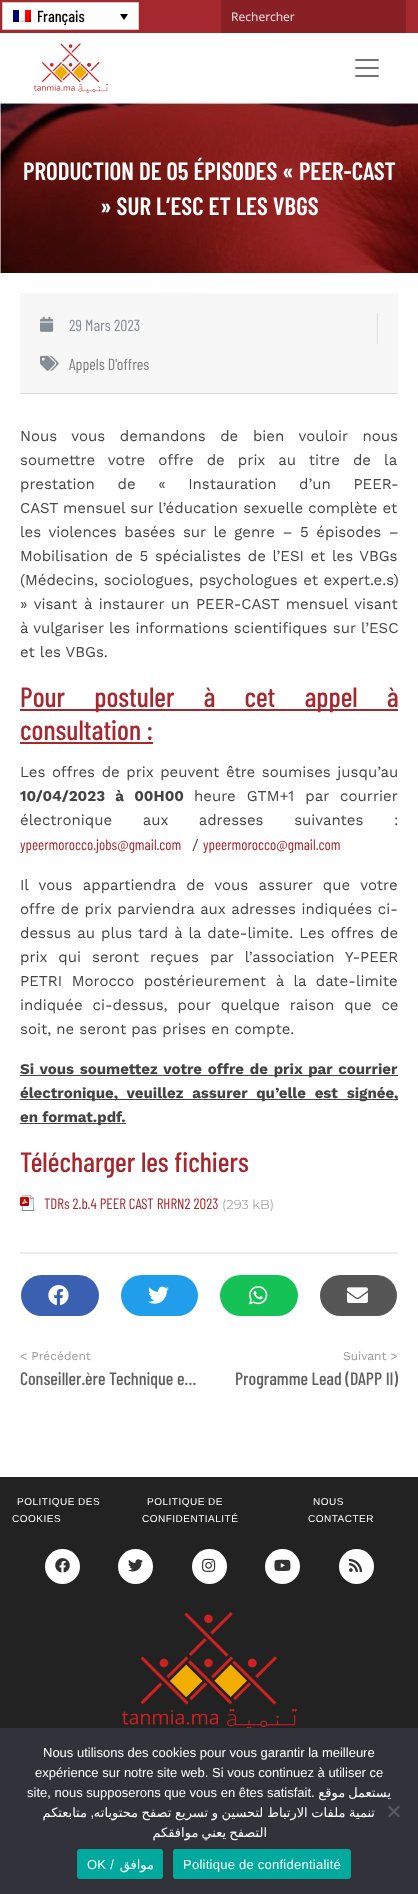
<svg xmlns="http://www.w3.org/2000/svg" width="418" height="1894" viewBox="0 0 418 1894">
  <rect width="100%" height="100%" fill="#fff"/>
  <path d="M0 0h418v33H0z" fill="#a5282f"/>
  <path d="M2.5 2.5h136v27H2.5z" fill="#fff" stroke="#cdcdcd"/>
  <image x="13" y="10" width="18" height="12" href="img/1.png"/>
  <path d="M120 14H128L124 20Z" fill="#000"/>
  <path d="M221 0h185v33H221z" fill="#882026"/>
  <image x="34" y="43" width="74" height="50" href="img/2.png"/>
  <image x="355" y="59" width="24" height="18" href="img/3.png"/>
  <image x="0" y="103" width="418" height="170" href="img/4.png"/>
  <path d="M20 293h378v100H20z" fill="#f7f7f7"/>
  <path d="M377 313h1v31H377z" fill="#ddd"/>
  <image x="40" y="316" width="14" height="16" href="img/5.png"/>
  <image x="40" y="355" width="19" height="16" href="img/6.png"/>
  <path d="M20 393h378v1H20z" fill="#d9d9d9"/>
  <path d="M20 709h378v2H20z" fill="#a5282f"/>
  <path d="M20 742h133v2H20z" fill="#a5282f"/>
  <path d="M20 1075h378v1H20z" fill="#444"/>
  <path d="M20 1099h378v1H20z" fill="#444"/>
  <path d="M20 1123h106v1H20z" fill="#444"/>
  <image x="20" y="1195" width="16" height="16" href="img/7.png"/>
  <path d="M20 1252h378v2H20z" fill="#ecedef"/>
  <rect x="21" y="1275" width="78" height="41" rx="20.5" fill="#3960b1"/>
  <image x="48" y="1285" width="21" height="21" href="img/8.png"/>
  <rect x="121" y="1275" width="77" height="41" rx="20.5" fill="#209eeb"/>
  <image x="148" y="1286" width="21" height="18" href="img/9.png"/>
  <rect x="220" y="1275" width="78" height="41" rx="20.5" fill="#14c255"/>
  <image x="249" y="1286" width="19" height="19" href="img/10.png"/>
  <rect x="320" y="1275" width="77" height="41" rx="20.5" fill="#565656"/>
  <image x="347" y="1287" width="21" height="16" href="img/11.png"/>
  <path d="M0 1477h418v251H0z" fill="#222"/>
  <circle cx="62.5" cy="1566.5" r="17.5" fill="#fff"/>
  <image x="55" y="1558" width="15" height="15" href="img/12.png"/>
  <circle cx="135.5" cy="1566.5" r="17.5" fill="#fff"/>
  <image x="128" y="1559" width="15" height="13" href="img/13.png"/>
  <circle cx="209.5" cy="1566.5" r="17.5" fill="#fff"/>
  <image x="202" y="1558" width="14" height="14" href="img/14.png"/>
  <circle cx="282.5" cy="1566.5" r="17.5" fill="#fff"/>
  <image x="274" y="1559" width="17" height="12" href="img/15.png"/>
  <circle cx="356.5" cy="1566.5" r="17.5" fill="#fff"/>
  <image x="349" y="1558" width="14" height="14" href="img/16.png"/>
  <image x="122" y="1612" width="175" height="116" href="img/17.png"/>
  <path d="M0 1728h418v166H0z" fill="#32323a"/>
  <path d="M398.5 1805.5L400 1807L389.5 1817.5L388 1816Z" fill="#59595d"/>
  <path d="M388 1807L389.5 1805.5L400 1816L398.5 1817.5Z" fill="#59595d"/>
  <rect x="77" y="1849" width="86" height="30" rx="3" fill="#00a99d"/>
  <rect x="173" y="1849" width="178" height="30" rx="3" fill="#00a99d"/>
  <text x="37" y="22" font-family="Barlow Condensed" font-size="16" font-weight="500" fill="#000">Français</text>
  <text x="231" y="21" font-family="Noto Sans" font-size="12" fill="#ecdbdc">Rechercher</text>
  <g font-family="Barlow Condensed" font-size="25" font-weight="600" fill="#fff">
    <text x="23" y="180">PRODUCTION DE 05 ÉPISODES « PEER-CAST</text>
    <text x="100" y="215">» SUR L’ESC ET LES VBGS</text>
  </g>
  <text x="69" y="331" font-family="Barlow Condensed" font-size="16" fill="#878d95">29 Mars 2023</text>
  <text x="69" y="370" font-family="Barlow Condensed" font-size="16" fill="#7d7d7d">Appels D'offres</text>
  <g font-family="Work Sans" font-size="15" fill="#444">
    <text x="20" y="441" word-spacing="9.5">Nous vous demandons de bien vouloir nous</text>
    <text x="20" y="465" word-spacing="8">soumettre votre offre de prix au titre de la</text>
    <text x="20" y="489" word-spacing="17.5">prestation de « Instauration d’un PEER-</text>
    <text x="20" y="513">CAST mensuel sur l’éducation sexuelle complète et</text>
    <text x="20" y="537" word-spacing="2.5">les violences basées sur le genre – 5 épisodes –</text>
    <text x="20" y="561" word-spacing="1.5">Mobilisation de 5 spécialistes de l’ESI et les VBGs</text>
    <text x="20" y="585" word-spacing="0.5">(Médecins, sociologues, psychologues et expert.e.s)</text>
    <text x="20" y="609" word-spacing="1.5">» visant à instaurer un PEER-CAST mensuel visant</text>
    <text x="20" y="633" word-spacing="0.25">à vulgariser les informations scientifiques sur l’ESC</text>
    <text x="20" y="657">et les VBGs.</text>
  </g>
  <g font-family="Barlow Condensed" font-size="28" font-weight="500" fill="#a5282f">
    <text x="20" y="707" word-spacing="23.5">Pour postuler à cet appel à</text>
    <text x="20" y="740">consultation :</text>
  </g>
  <text x="20" y="777" word-spacing="1.5" font-family="Work Sans" font-size="15" fill="#444">Les offres de prix peuvent être soumises jusqu’au</text>
  <text x="20" y="801" word-spacing="6" font-family="Work Sans" font-size="15" font-weight="bold" fill="#444">10/04/2023 à 00H00</text>
  <g font-family="Work Sans" font-size="15" fill="#444">
    <text x="194" y="801" word-spacing="6">heure GTM+1 par courrier</text>
    <text x="20" y="825" word-spacing="25.5">électronique aux adresses suivantes :</text>
  </g>
  <text x="20" y="850" font-family="Barlow Condensed" font-size="15" fill="#a5282f">ypeermorocco.jobs@gmail.com</text>
  <text x="192" y="850" font-family="Work Sans" font-size="15" fill="#444">/</text>
  <text x="203" y="850" font-family="Barlow Condensed" font-size="15" fill="#a5282f">ypeermorocco@gmail.com</text>
  <g font-family="Work Sans" font-size="15" fill="#444">
    <text x="20" y="890" word-spacing="5.25">Il vous appartiendra de vous assurer que votre</text>
    <text x="20" y="914" word-spacing="0.5">offre de prix parviendra aux adresses indiquées ci-</text>
    <text x="20" y="938" word-spacing="1">dessus au plus tard à la date-limite. Les offres de</text>
    <text x="20" y="962" word-spacing="6">prix qui seront reçues par l’association Y-PEER</text>
    <text x="20" y="986" word-spacing="4.5">PETRI Morocco postérieurement à la date-limite</text>
    <text x="20" y="1010" word-spacing="4.75">indiquée ci-dessus, pour quelque raison que ce</text>
    <text x="20" y="1034">soit, ne seront pas prises en compte.</text>
  </g>
  <g font-family="Work Sans" font-size="15" font-weight="bold" fill="#444">
    <text x="20" y="1074" word-spacing="1.5">Si vous soumettez votre offre de prix par courrier</text>
    <text x="20" y="1098" word-spacing="4.5">électronique, veuillez assurer qu’elle est signée,</text>
    <text x="20" y="1122">en format.pdf.</text>
  </g>
  <text x="20" y="1172" font-family="Barlow Condensed" font-size="28" font-weight="500" fill="#a5282f">Télécharger les fichiers</text>
  <text x="44" y="1209" font-family="Barlow Condensed" font-size="15" fill="#a5282f">TDRs 2.b.4 PEER CAST RHRN2 2023</text>
  <text x="222" y="1209" font-family="Montserrat" font-size="13" fill="#a9a9a9">(293 kB)</text>
  <text x="20" y="1360" font-family="Work Sans" font-size="12" fill="#999">&lt; Précédent</text>
  <text x="20" y="1385" font-family="Barlow Condensed" font-size="18" font-weight="500" fill="#605f5f">Conseiller.ère Technique e…</text>
  <text x="343" y="1360" font-family="Work Sans" font-size="12" fill="#999">Suivant &gt;</text>
  <text x="235" y="1385" font-family="Barlow Condensed" font-size="18" font-weight="500" fill="#605f5f">Programme Lead (DAPP II)</text>
  <g font-family="Liberation Sans" font-size="10" letter-spacing="0.5" fill="#fff">
    <text x="17" y="1505">POLITIQUE DES</text>
    <text x="12" y="1522">COOKIES</text>
    <text x="147" y="1505">POLITIQUE DE</text>
    <text x="142" y="1522">CONFIDENTIALITÉ</text>
    <text x="313" y="1505">NOUS</text>
    <text x="308" y="1522">CONTACTER</text>
  </g>
  <g font-family="Liberation Sans" font-size="13" fill="#fff">
    <text x="43" y="1757">Nous utilisons des cookies pour vous garantir la meilleure</text>
    <text x="35" y="1777">expérience sur notre site web. Si vous continuez à utiliser ce</text>
    <text x="27" y="1797">site, nous supposerons que vous en êtes satisfait.</text>
  </g>
  <g font-family="DejaVu Sans" font-size="13" direction="rtl" fill="#fff">
    <text x="391" y="1797" word-spacing="-1">يستعمل موقع</text>
    <text x="87" y="1817">متابعتكم</text>
  </g>
  <text x="94" y="1817" font-family="Liberation Sans" font-size="13" direction="rtl" fill="#fff">,</text>
  <g font-family="DejaVu Sans" font-size="13" direction="rtl" fill="#fff">
    <text x="375" y="1817" word-spacing="-0.5">تنمية ملفات الارتباط لتحسين و تسريع تصفح محتوياته</text>
    <text x="267" y="1837" word-spacing="-1">التصفح يعني موافقكم</text>
  </g>
  <text x="87" y="1869" font-family="Liberation Sans" font-size="13" letter-spacing="0.25" fill="#fff">OK /</text>
  <text x="154" y="1869" font-family="DejaVu Sans" font-size="13" letter-spacing="0.25" direction="rtl" fill="#fff">موافق</text>
  <text x="183" y="1869" font-family="Liberation Sans" font-size="13" letter-spacing="0.25" fill="#fff">Politique de confidentialité</text>
</svg>
